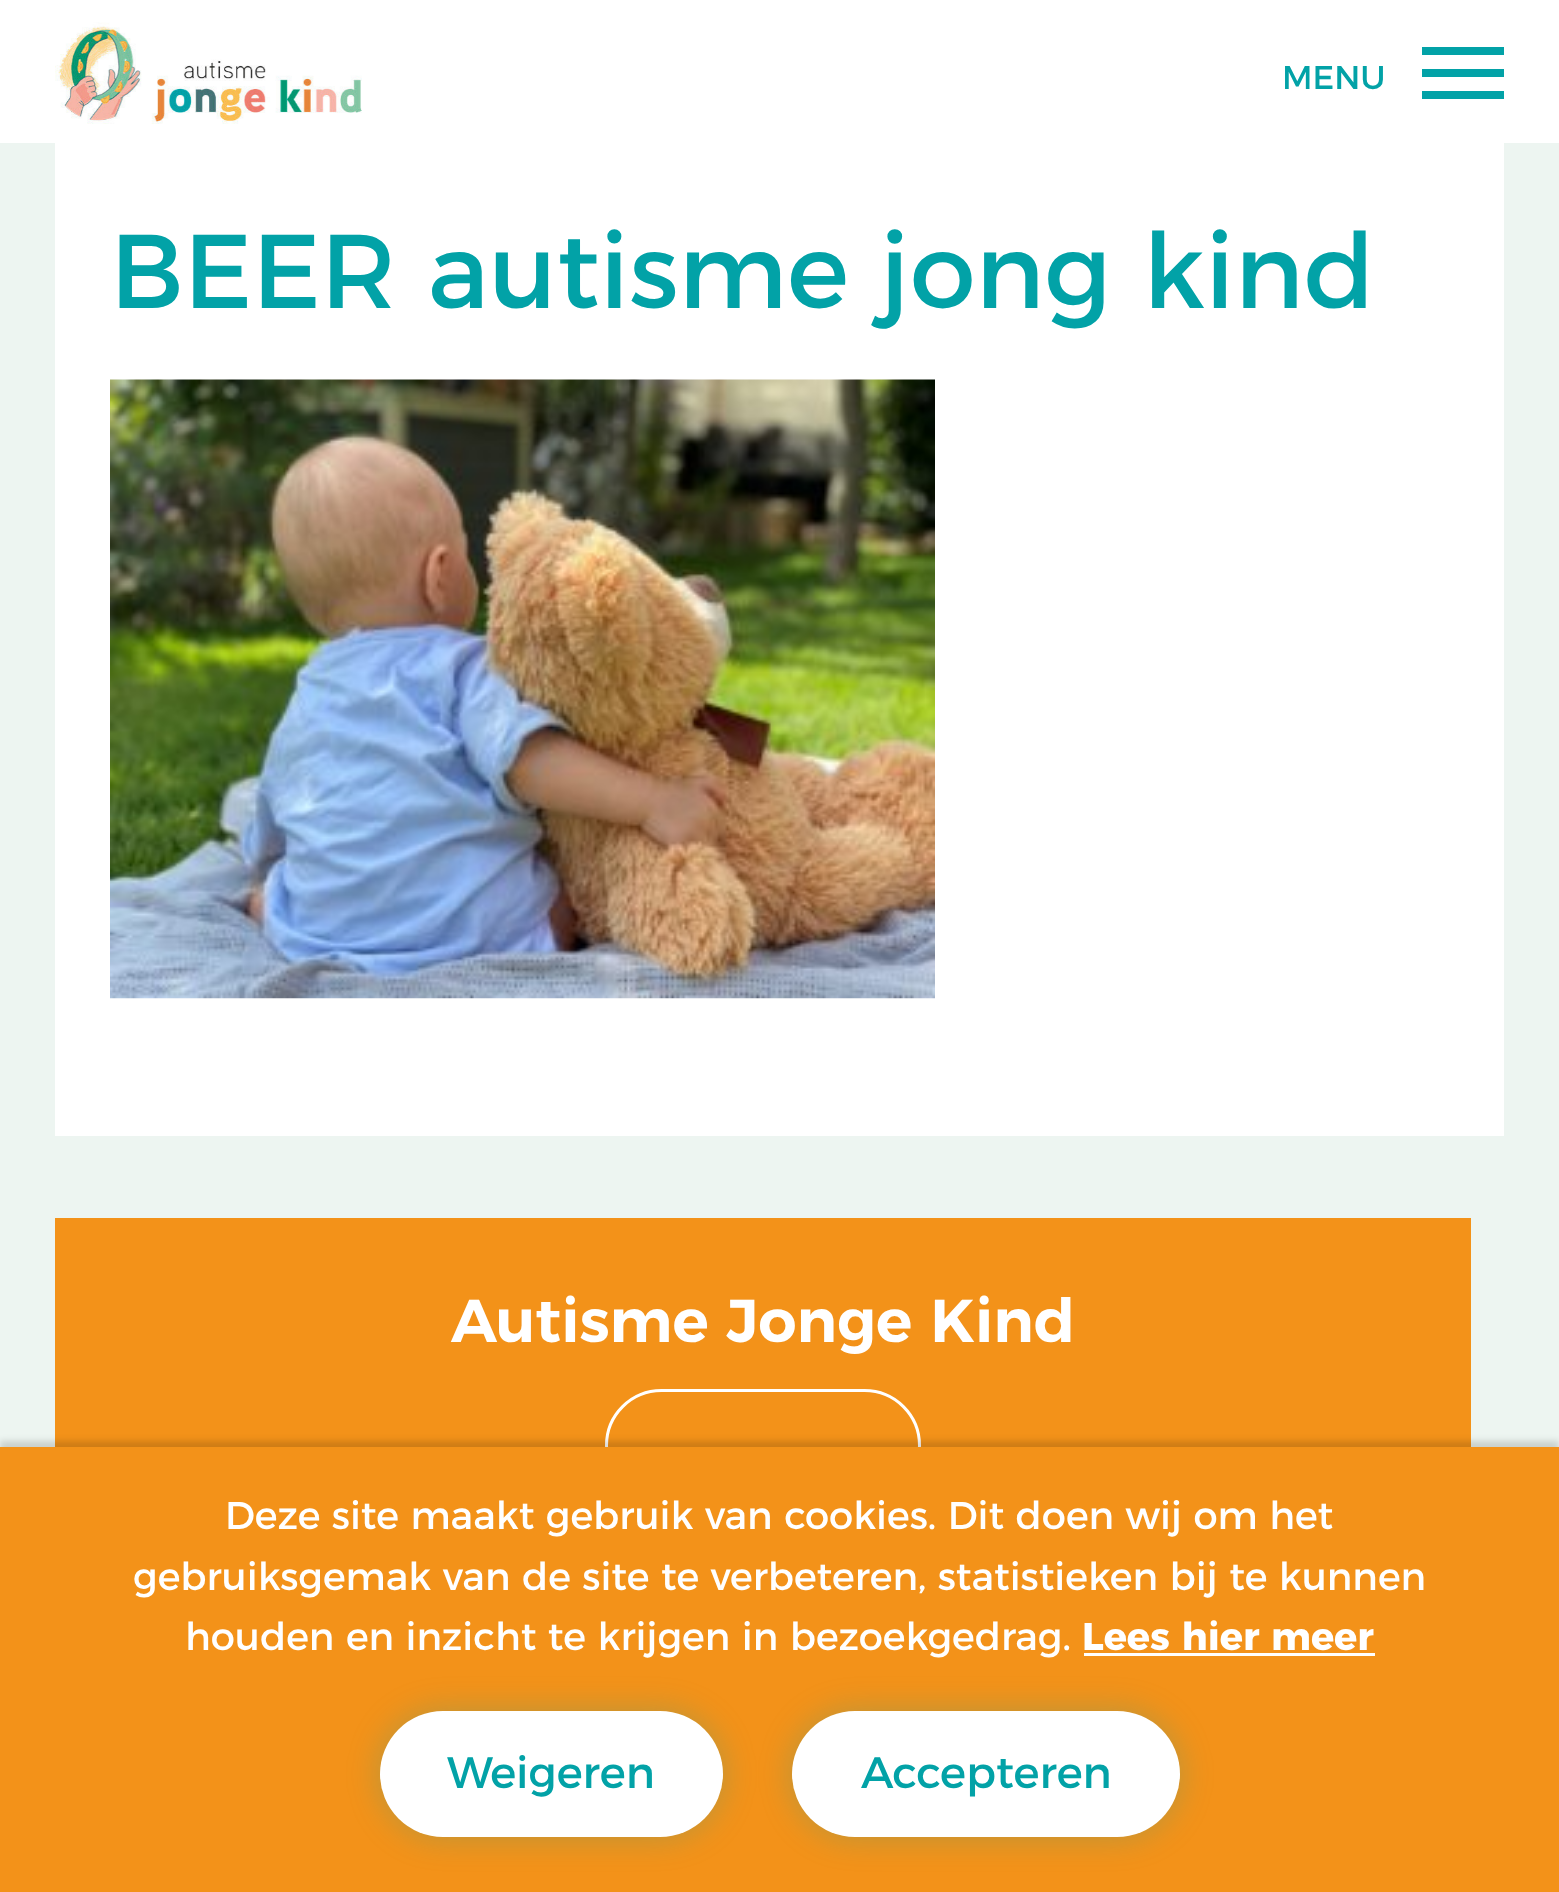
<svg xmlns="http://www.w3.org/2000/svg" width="1559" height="1892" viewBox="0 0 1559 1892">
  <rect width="100%" height="100%" fill="#edf5f1"/>
  <path d="M0 0h1559v143H0z" fill="#fff"/>
  <image x="55" y="22" width="307" height="102" href="img/1.png"/>
  <path d="M1422 69h82v8H1422z" fill="#02a2a7"/>
  <path d="M1422 47h82v8H1422z" fill="#02a2a7"/>
  <path d="M1422 91h82v8H1422z" fill="#02a2a7"/>
  <path d="M55 143h1449v993H55z" fill="#fff"/>
  <image x="110" y="379" width="825" height="620" href="img/2.png"/>
  <path d="M55 1218h1416v229H55z" fill="#f39219"/>
  <rect x="606.5" y="1390.5" width="313" height="110" rx="55" fill="none" stroke="#fff" stroke-width="3"/>
  <path d="M0 1441h1559v446H0z" fill="#00000026" filter="blur(3px)"/>
  <path d="M0 1447h1559v445H0z" fill="#f39219"/>
  <path d="M1084 1653h291v3H1084z" fill="#fff"/>
  <rect x="380" y="1711" width="343" height="126" rx="63" fill="#02a2a740" filter="blur(16.5px)"/>
  <rect x="380" y="1711" width="343" height="126" rx="63" fill="#fff"/>
  <rect x="792" y="1711" width="388" height="126" rx="63" fill="#02a2a740" filter="blur(16.5px)"/>
  <rect x="792" y="1711" width="388" height="126" rx="63" fill="#fff"/>
  <text x="1282" y="89" font-family="Montserrat" font-size="33" fill="#02a2a7">MENU</text>
  <text x="110" y="308" font-family="Montserrat" font-size="104.5" fill="#02a2a7">BEER autisme jong kind</text>
  <text x="451" y="1342" font-family="Montserrat" font-size="60.5" font-weight="600" fill="#fff">Autisme Jonge Kind</text>
  <g font-family="Montserrat" font-size="38.5" fill="#fff">
    <text x="225" y="1529">Deze site maakt gebruik van cookies. Dit doen wij om het</text>
    <text x="133" y="1590">gebruiksgemak van de site te verbeteren, statistieken bij te kunnen</text>
    <text x="185" y="1650">houden en inzicht te krijgen in bezoekgedrag.</text>
  </g>
  <text x="1082" y="1650" font-family="Montserrat" font-size="38.5" font-weight="bold" fill="#fff">Lees hier meer</text>
  <g font-family="Montserrat" font-size="44" fill="#02a2a7">
    <text x="447" y="1788">Weigeren</text>
    <text x="861" y="1788">Accepteren</text>
  </g>
</svg>
